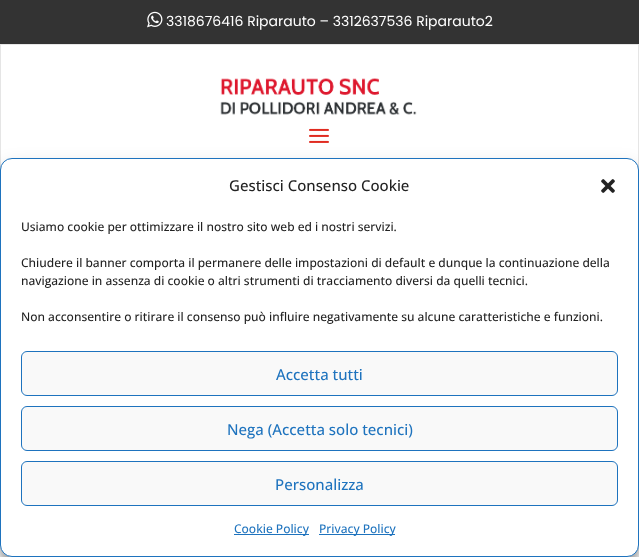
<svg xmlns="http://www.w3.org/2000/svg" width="639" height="557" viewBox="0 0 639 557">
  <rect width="100%" height="100%" fill="#fff"/>
  <path d="M0 0h639v44H0z" fill="#333"/>
  <image x="147" y="11" width="16" height="17" href="img/1.png"/>
  <path d="M0 44H639L638 45H1Z" fill="#e6e6e6"/>
  <path d="M639 44V181L638 180V45Z" fill="#0000001a"/>
  <path d="M0 181V44L1 45V180Z" fill="#0000001a"/>
  <image x="220" y="78" width="197" height="37" href="img/2.png"/>
  <image x="309" y="128" width="20" height="15" href="img/3.png"/>
  <path d="M0 545h639v12H0z" fill="#fcfcfc"/>
  <rect y="164" width="639" height="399" rx="12" fill="#0000003b" filter="blur(3px)"/>
  <rect y="168" width="639" height="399" rx="12" fill="#00000030" filter="blur(10px)"/>
  <rect x="0.5" y="158.5" width="638" height="398" rx="11.5" fill="#fff" stroke="#1e73be"/>
  <image x="601" y="179" width="14" height="14" href="img/4.png"/>
  <rect x="21.5" y="351.5" width="596" height="44" rx="5.5" fill="#f9f9f9" stroke="#1e73be"/>
  <rect x="21.5" y="406.5" width="596" height="44" rx="5.5" fill="#f9f9f9" stroke="#1e73be"/>
  <rect x="21.5" y="461.5" width="596" height="44" rx="5.5" fill="#f9f9f9" stroke="#1e73be"/>
  <path d="M234 534h75v1H234z" fill="#1e73be"/>
  <path d="M319 534h76v1H319z" fill="#1e73be"/>
  <text x="166" y="26" font-family="Poppins" font-size="14" fill="#fff">3318676416 Riparauto – 3312637536 Riparauto2</text>
  <text x="229" y="191" font-family="Open Sans" font-size="15" font-weight="500" fill="#222">Gestisci Consenso Cookie</text>
  <g font-family="Open Sans" font-size="12" font-weight="500" fill="#222">
    <text x="21" y="231">Usiamo cookie per ottimizzare il nostro sito web ed i nostri servizi.</text>
    <text x="21" y="267">Chiudere il banner comporta il permanere delle impostazioni di default e dunque la continuazione della</text>
    <text x="21" y="285">navigazione in assenza di cookie o altri strumenti di tracciamento diversi da quelli tecnici.</text>
    <text x="21" y="321">Non acconsentire o ritirare il consenso può influire negativamente su alcune caratteristiche e funzioni.</text>
  </g>
  <g font-family="Open Sans" font-size="15" font-weight="500" fill="#1e73be">
    <text x="276" y="380">Accetta tutti</text>
    <text x="227" y="435">Nega (Accetta solo tecnici)</text>
    <text x="275" y="490">Personalizza</text>
  </g>
  <g font-family="Open Sans" font-size="12" font-weight="500" fill="#1e73be">
    <text x="234" y="533">Cookie Policy</text>
    <text x="319" y="533">Privacy Policy</text>
  </g>
</svg>
